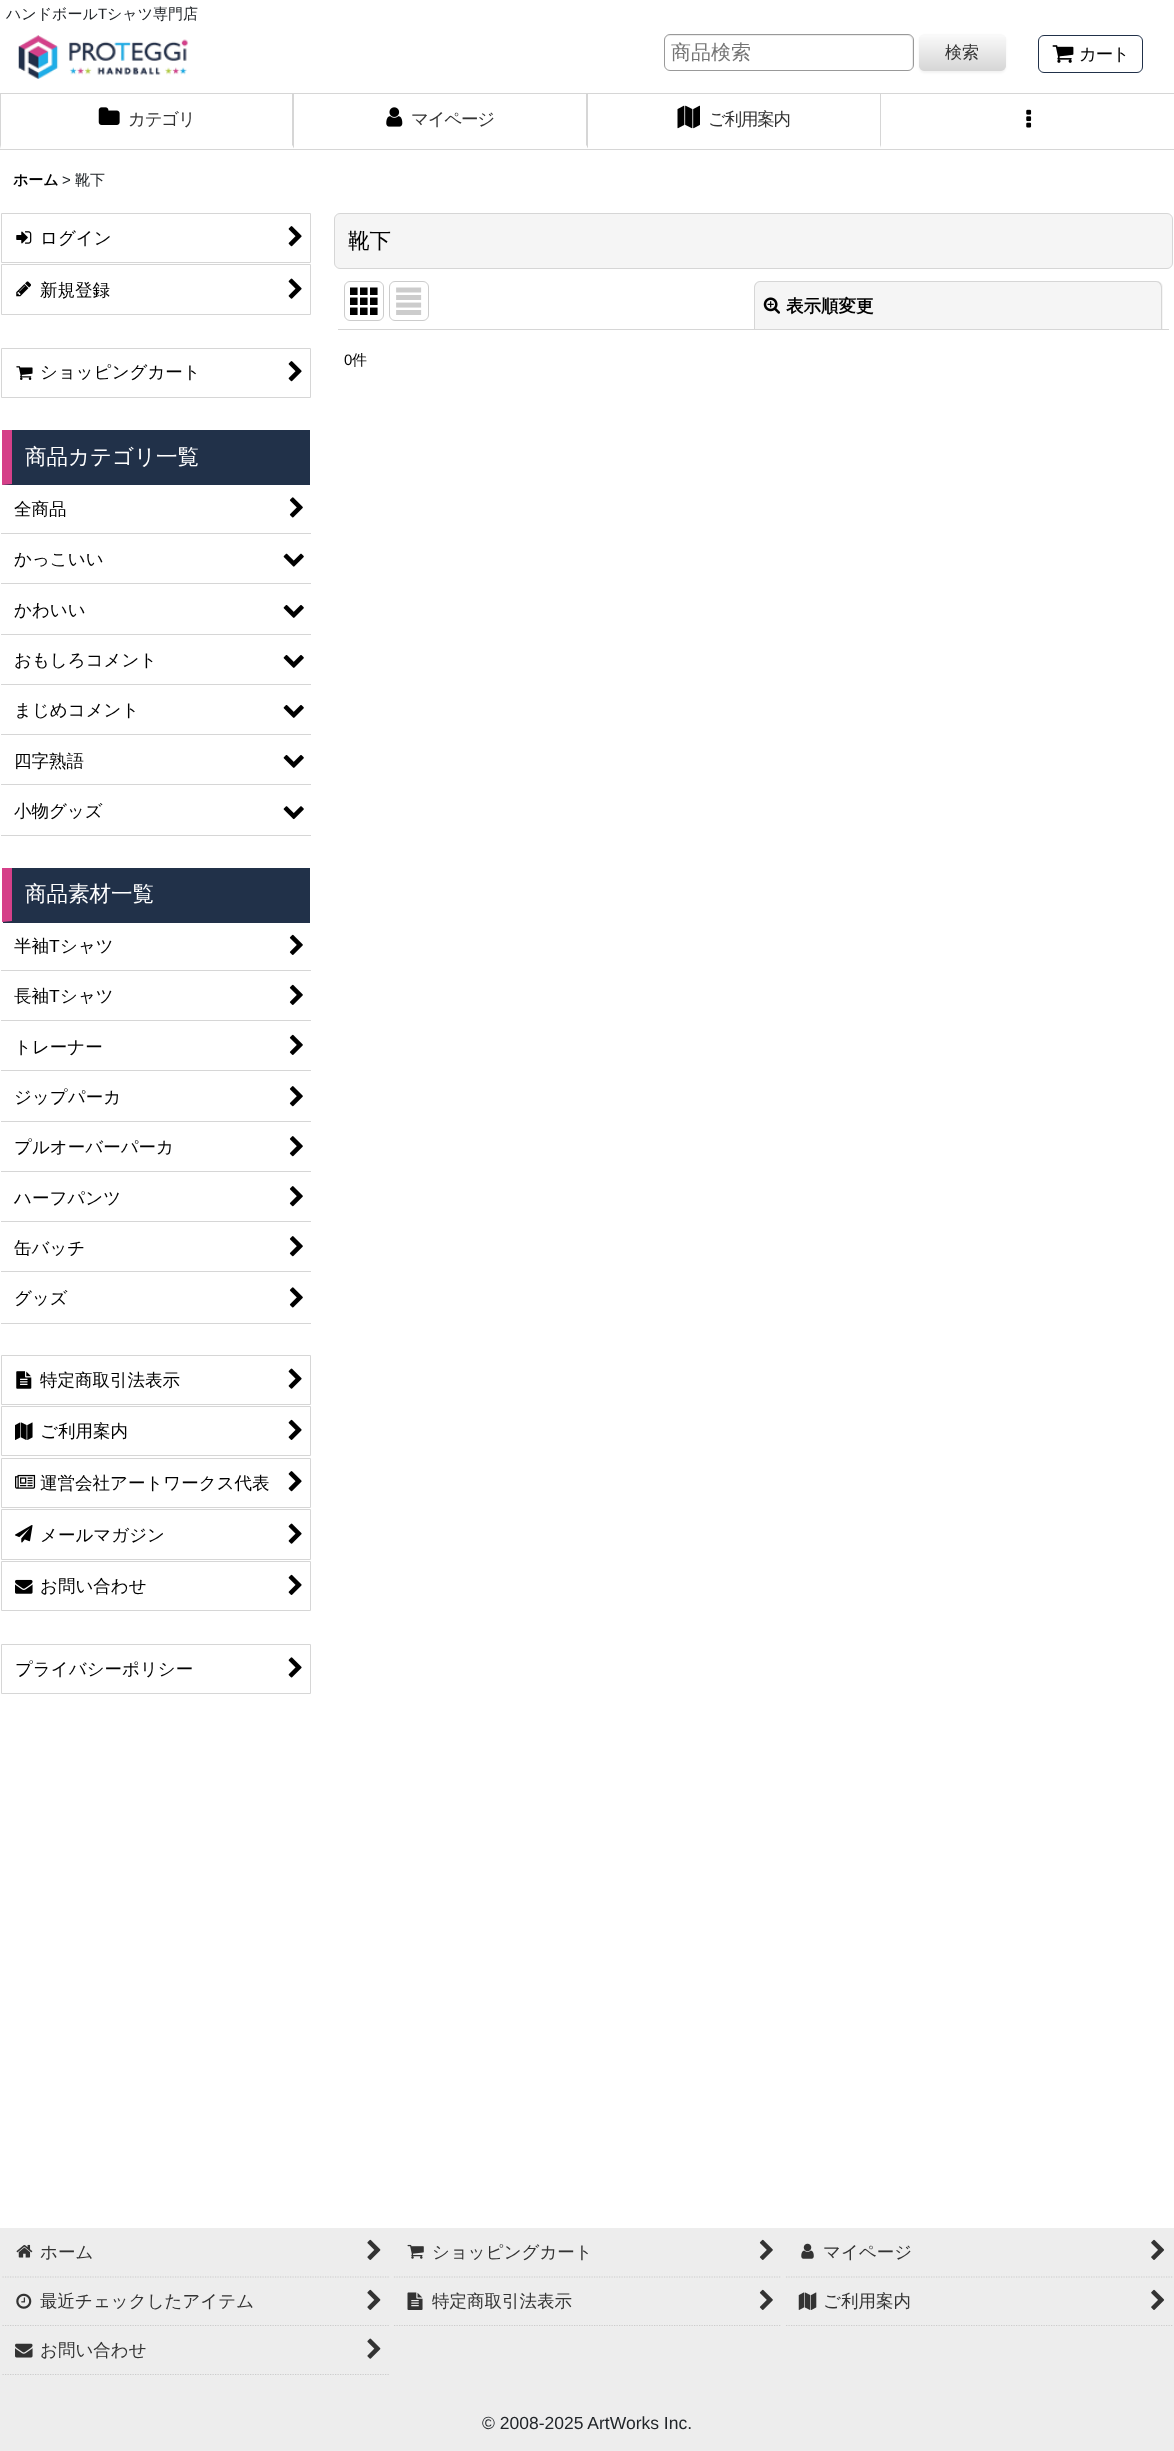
<svg xmlns="http://www.w3.org/2000/svg" width="1174" height="2451" viewBox="0 0 1174 2451">
  <rect width="100%" height="100%" fill="#fff"/>
  <path d="M0 93h1174v1H0z" fill="#d6d6d6"/>
  <path d="M670 36H908C910 36 912 38 912 41V66L911 69C912 68 913 66 913 65V40C913 37 911 35 908 35H670C667 35 665 37 665 40V41C665 38 667 36 670 36Z" fill="#ececec"/>
  <rect x="664.5" y="34.5" width="249" height="36" rx="5.5" fill="none" stroke="#999"/>
  <rect x="919" y="35" width="87" height="38" rx="6" fill="#0000000d" filter="blur(1px)"/>
  <rect x="919" y="34" width="87" height="37" rx="6" fill="#f9f9f9"/>
  <image x="919" y="37" width="87" height="34" href="img/1.png"/>
  <image x="18" y="35" width="171" height="44" href="img/2.png"/>
  <rect x="1038.5" y="35.5" width="104" height="37" rx="5.5" fill="none" stroke="#21314a"/>
  <image x="1052" y="45" width="22" height="18" href="img/3.png"/>
  <path d="M0 149h1174v1H0z" fill="#d6d6d6"/>
  <path d="M294 94V149L292 145V94Z" fill="#d6d6d6"/>
  <path d="M294 149H0L1 145H292Z" fill="#fff"/>
  <path d="M0 149V94H1V145Z" fill="#d6d6d6"/>
  <image x="98" y="107" width="22" height="18" href="img/4.png"/>
  <path d="M588 94V149L586 145V94Z" fill="#d6d6d6"/>
  <path d="M588 149H294V145H586Z" fill="#fff"/>
  <image x="386" y="107" width="17" height="20" href="img/5.png"/>
  <path d="M881 94V149L880 145V94Z" fill="#d6d6d6"/>
  <path d="M881 149H588V145H880Z" fill="#fff"/>
  <image x="677" y="105" width="23" height="24" href="img/6.png"/>
  <image x="1026" y="109" width="6" height="19" href="img/7.png"/>
  <path d="M1.5 213.5h309v49H1.5z" fill="none" stroke="#d6d6d6"/>
  <image x="16" y="231" width="16" height="13" href="img/8.png"/>
  <image x="288" y="226" width="14" height="21" href="img/9.png"/>
  <path d="M1.5 264.5h309v50H1.5z" fill="none" stroke="#d6d6d6"/>
  <image x="16" y="281" width="15" height="16" href="img/10.png"/>
  <image x="288" y="278" width="14" height="21" href="img/11.png"/>
  <path d="M1.5 348.5h309v49H1.5z" fill="none" stroke="#d6d6d6"/>
  <image x="16" y="366" width="17" height="14" href="img/12.png"/>
  <image x="288" y="361" width="14" height="21" href="img/9.png"/>
  <path d="M3 430h307v55H3z" fill="#213149"/>
  <path d="M310 485H2L12 484H310Z" fill="#21314a"/>
  <path d="M2 485V430H12V484Z" fill="#d54089"/>
  <path d="M1 533h310v1H1z" fill="#d6d6d6"/>
  <image x="289" y="497" width="14" height="21" href="img/13.png"/>
  <path d="M1 583h310v1H1z" fill="#d6d6d6"/>
  <image x="283" y="553" width="21" height="14" href="img/14.png"/>
  <path d="M1 634h310v1H1z" fill="#d6d6d6"/>
  <image x="283" y="605" width="21" height="13" href="img/15.png"/>
  <path d="M1 684h310v1H1z" fill="#d6d6d6"/>
  <image x="283" y="655" width="21" height="13" href="img/15.png"/>
  <path d="M1 734h310v1H1z" fill="#d6d6d6"/>
  <image x="283" y="705" width="21" height="13" href="img/15.png"/>
  <path d="M1 784h310v1H1z" fill="#d6d6d6"/>
  <image x="283" y="755" width="21" height="13" href="img/15.png"/>
  <path d="M1 835h310v1H1z" fill="#d6d6d6"/>
  <image x="283" y="806" width="21" height="14" href="img/16.png"/>
  <path d="M3 868h307v55H3z" fill="#213149"/>
  <path d="M310 922H2L12 921H310Z" fill="#21314a"/>
  <path d="M2 922V868H12V921Z" fill="#d54089"/>
  <path d="M1 970h310v1H1z" fill="#d6d6d6"/>
  <image x="289" y="934" width="14" height="21" href="img/17.png"/>
  <path d="M1 1020h310v1H1z" fill="#d6d6d6"/>
  <image x="289" y="984" width="14" height="21" href="img/17.png"/>
  <path d="M1 1070h310v1H1z" fill="#d6d6d6"/>
  <image x="289" y="1034" width="14" height="21" href="img/17.png"/>
  <path d="M1 1121h310v1H1z" fill="#d6d6d6"/>
  <image x="289" y="1086" width="14" height="21" href="img/18.png"/>
  <path d="M1 1171h310v1H1z" fill="#d6d6d6"/>
  <image x="289" y="1136" width="14" height="21" href="img/18.png"/>
  <path d="M1 1221h310v1H1z" fill="#d6d6d6"/>
  <image x="289" y="1186" width="14" height="21" href="img/18.png"/>
  <path d="M1 1271h310v1H1z" fill="#d6d6d6"/>
  <image x="289" y="1236" width="14" height="21" href="img/18.png"/>
  <path d="M1 1323h310v1H1z" fill="#d6d6d6"/>
  <image x="289" y="1287" width="14" height="21" href="img/13.png"/>
  <path d="M1.5 1355.5h309v49H1.5z" fill="none" stroke="#d6d6d6"/>
  <image x="16" y="1371" width="16" height="18" href="img/19.png"/>
  <image x="288" y="1368" width="14" height="21" href="img/11.png"/>
  <path d="M1.5 1406.5h309v49H1.5z" fill="none" stroke="#d6d6d6"/>
  <image x="15" y="1422" width="18" height="18" href="img/20.png"/>
  <image x="288" y="1419" width="14" height="21" href="img/21.png"/>
  <path d="M1.5 1458.5h309v49H1.5z" fill="none" stroke="#d6d6d6"/>
  <image x="15" y="1474" width="21" height="15" href="img/22.png"/>
  <image x="288" y="1471" width="14" height="21" href="img/9.png"/>
  <path d="M1.5 1509.5h309v50H1.5z" fill="none" stroke="#d6d6d6"/>
  <image x="15" y="1525" width="18" height="18" href="img/23.png"/>
  <image x="288" y="1523" width="14" height="21" href="img/11.png"/>
  <path d="M1.5 1561.5h309v49H1.5z" fill="none" stroke="#d6d6d6"/>
  <image x="15" y="1579" width="18" height="15" href="img/24.png"/>
  <image x="288" y="1574" width="14" height="21" href="img/21.png"/>
  <path d="M1.5 1644.5h309v49H1.5z" fill="none" stroke="#d6d6d6"/>
  <image x="288" y="1657" width="14" height="21" href="img/25.png"/>
  <rect x="334.5" y="213.5" width="838" height="55" rx="5.5" fill="#f5f5f5" stroke="#d6d6d6"/>
  <path d="M338 329h831v1H338z" fill="#d6d6d6"/>
  <rect x="344.5" y="281.5" width="39" height="39" rx="5.5" fill="none" stroke="#ccc"/>
  <image x="350" y="287" width="28" height="28" href="img/26.png"/>
  <rect x="389.5" y="281.5" width="39" height="39" rx="5.5" fill="none" stroke="#ccc"/>
  <image x="396" y="287" width="26" height="28" href="img/27.png"/>
  <path d="M760 281H1157C1160.5 281 1163 283.5 1163 287V329H754V287C754 283.5 756.5 281 760 281Z" fill="#f5f5f5"/>
  <path d="M760 281H1156C1160 281 1162 284 1162 288V329H754V288C754 284 757 281 760 281ZM760 282H1156C1159 282 1161 285 1161 288V329H755V288C755 285 757 282 760 282Z" fill="#d6d6d6" fill-rule="evenodd"/>
  <image x="763" y="297" width="17" height="17" href="img/28.png"/>
  <path d="M0 2228h1174v223H0z" fill="#ededed"/>
  <path d="M2.5 2277H389" fill="none" stroke="#ccc" stroke-width="1.2" stroke-dasharray="1.25 1.25"/>
  <image x="16" y="2244" width="17" height="14" href="img/29.png"/>
  <image x="367" y="2239" width="14" height="21" href="img/30.png"/>
  <path d="M394 2277H781" fill="none" stroke="#ccc" stroke-width="1.2" stroke-dasharray="1.25 1.25"/>
  <image x="407" y="2244" width="17" height="15" href="img/31.png"/>
  <image x="759" y="2239" width="14" height="21" href="img/32.png"/>
  <path d="M786 2277H1172.5" fill="none" stroke="#ccc" stroke-width="1.2" stroke-dasharray="1.25 1.25"/>
  <image x="801" y="2243" width="13" height="16" href="img/33.png"/>
  <image x="1151" y="2239" width="14" height="21" href="img/34.png"/>
  <path d="M2.5 2325.5H389" fill="none" stroke="#ccc" stroke-width="1.2" stroke-dasharray="1.25 1.25"/>
  <image x="16" y="2293" width="16" height="16" href="img/35.png"/>
  <image x="367" y="2289" width="14" height="21" href="img/30.png"/>
  <path d="M394 2325.5H781" fill="none" stroke="#ccc" stroke-width="1.2" stroke-dasharray="1.25 1.25"/>
  <image x="407" y="2292" width="16" height="18" href="img/36.png"/>
  <image x="759" y="2289" width="14" height="21" href="img/32.png"/>
  <path d="M786 2325.5H1172.5" fill="none" stroke="#ccc" stroke-width="1.2" stroke-dasharray="1.25 1.25"/>
  <image x="798" y="2292" width="19" height="18" href="img/37.png"/>
  <image x="1151" y="2289" width="14" height="21" href="img/34.png"/>
  <path d="M2.5 2374.5H389" fill="none" stroke="#ccc" stroke-width="1.2" stroke-dasharray="1.25 1.25"/>
  <image x="15" y="2343" width="18" height="15" href="img/38.png"/>
  <image x="367" y="2338" width="14" height="21" href="img/39.png"/>
  <text x="6" y="19" font-family="WenQuanYi Zen Hei" font-size="15" font-weight="500" fill="#212529">ハンドボール</text>
  <text x="98" y="19" font-family="Liberation Sans" font-size="15" fill="#212529">T</text>
  <text x="107" y="19" font-family="WenQuanYi Zen Hei" font-size="15" font-weight="500" fill="#212529">シャツ専門店</text>
  <text x="671" y="59" font-family="WenQuanYi Zen Hei" font-size="20" font-weight="500" fill="#757575">商品検索</text>
  <text x="945" y="58" font-family="WenQuanYi Zen Hei" font-size="17" font-weight="500" fill="#333">検索</text>
  <text x="1079" y="60" font-family="WenQuanYi Zen Hei" font-size="17.5" font-weight="500" letter-spacing="-1.25" fill="#000">カート</text>
  <g font-family="WenQuanYi Zen Hei" font-size="17.5" font-weight="500" letter-spacing="-1.25" fill="#333">
    <text x="128" y="125">カテゴリ</text>
    <text x="411" y="125">マイページ</text>
    <text x="708" y="125">ご利用案内</text>
  </g>
  <text x="13" y="185" font-family="WenQuanYi Zen Hei" font-size="15" font-weight="bold" fill="#000">ホーム</text>
  <text x="62" y="185" font-family="Liberation Sans" font-size="15" fill="#212529">&gt;</text>
  <text x="75" y="185" font-family="WenQuanYi Zen Hei" font-size="15" font-weight="500" fill="#212529">靴下</text>
  <g font-family="WenQuanYi Zen Hei" font-size="17.5" font-weight="500" fill="#000">
    <text x="40" y="244">ログイン</text>
    <text x="40" y="296">新規登録</text>
    <text x="40" y="378">ショッピングカート</text>
  </g>
  <text x="25" y="464" font-family="WenQuanYi Zen Hei" font-size="21.5" font-weight="500" fill="#fff">商品カテゴリ一覧</text>
  <g font-family="WenQuanYi Zen Hei" font-size="17.5" font-weight="500" fill="#000">
    <text x="14" y="515">全商品</text>
    <text x="14" y="565">かっこいい</text>
    <text x="14" y="616">かわいい</text>
    <text x="14" y="666">おもしろコメント</text>
    <text x="14" y="716">まじめコメント</text>
    <text x="14" y="767">四字熟語</text>
    <text x="14" y="817">小物グッズ</text>
  </g>
  <text x="25" y="901" font-family="WenQuanYi Zen Hei" font-size="21.5" font-weight="500" fill="#fff">商品素材一覧</text>
  <text x="14" y="952" font-family="WenQuanYi Zen Hei" font-size="17.5" font-weight="500" fill="#000">半袖</text>
  <text x="49" y="952" font-family="Liberation Sans" font-size="17.5" fill="#000">T</text>
  <g font-family="WenQuanYi Zen Hei" font-size="17.5" font-weight="500" fill="#000">
    <text x="60" y="952">シャツ</text>
    <text x="14" y="1002">長袖</text>
  </g>
  <text x="49" y="1002" font-family="Liberation Sans" font-size="17.5" fill="#000">T</text>
  <g font-family="WenQuanYi Zen Hei" font-size="17.5" font-weight="500" fill="#000">
    <text x="60" y="1002">シャツ</text>
    <text x="14" y="1053">トレーナー</text>
    <text x="14" y="1103">ジップパーカ</text>
    <text x="14" y="1153">プルオーバーパーカ</text>
    <text x="14" y="1204">ハーフパンツ</text>
    <text x="14" y="1254">缶バッチ</text>
    <text x="14" y="1304">グッズ</text>
    <text x="40" y="1386">特定商取引法表示</text>
    <text x="40" y="1437">ご利用案内</text>
    <text x="40" y="1489">運営会社アートワークス代表</text>
    <text x="40" y="1541">メールマガジン</text>
    <text x="40" y="1592">お問い合わせ</text>
    <text x="15" y="1675">プライバシーポリシー</text>
  </g>
  <text x="348" y="248" font-family="WenQuanYi Zen Hei" font-size="21.5" font-weight="500" fill="#000">靴下</text>
  <text x="786" y="312" font-family="WenQuanYi Zen Hei" font-size="17.5" font-weight="bold" fill="#000">表示順変更</text>
  <text x="344" y="365" font-family="Liberation Sans" font-size="15" fill="#000">0</text>
  <text x="352" y="365" font-family="WenQuanYi Zen Hei" font-size="15" font-weight="500" fill="#000">件</text>
  <g font-family="WenQuanYi Zen Hei" font-size="17.5" font-weight="500" fill="#333">
    <text x="40" y="2258">ホーム</text>
    <text x="432" y="2258">ショッピングカート</text>
    <text x="823" y="2258">マイページ</text>
    <text x="40" y="2307">最近チェックしたアイテム</text>
    <text x="432" y="2307">特定商取引法表示</text>
    <text x="823" y="2307">ご利用案内</text>
    <text x="40" y="2356">お問い合わせ</text>
  </g>
  <text x="482" y="2429" font-family="Liberation Sans" font-size="17.5" fill="#212529">© 2008-2025 ArtWorks Inc.</text>
</svg>
